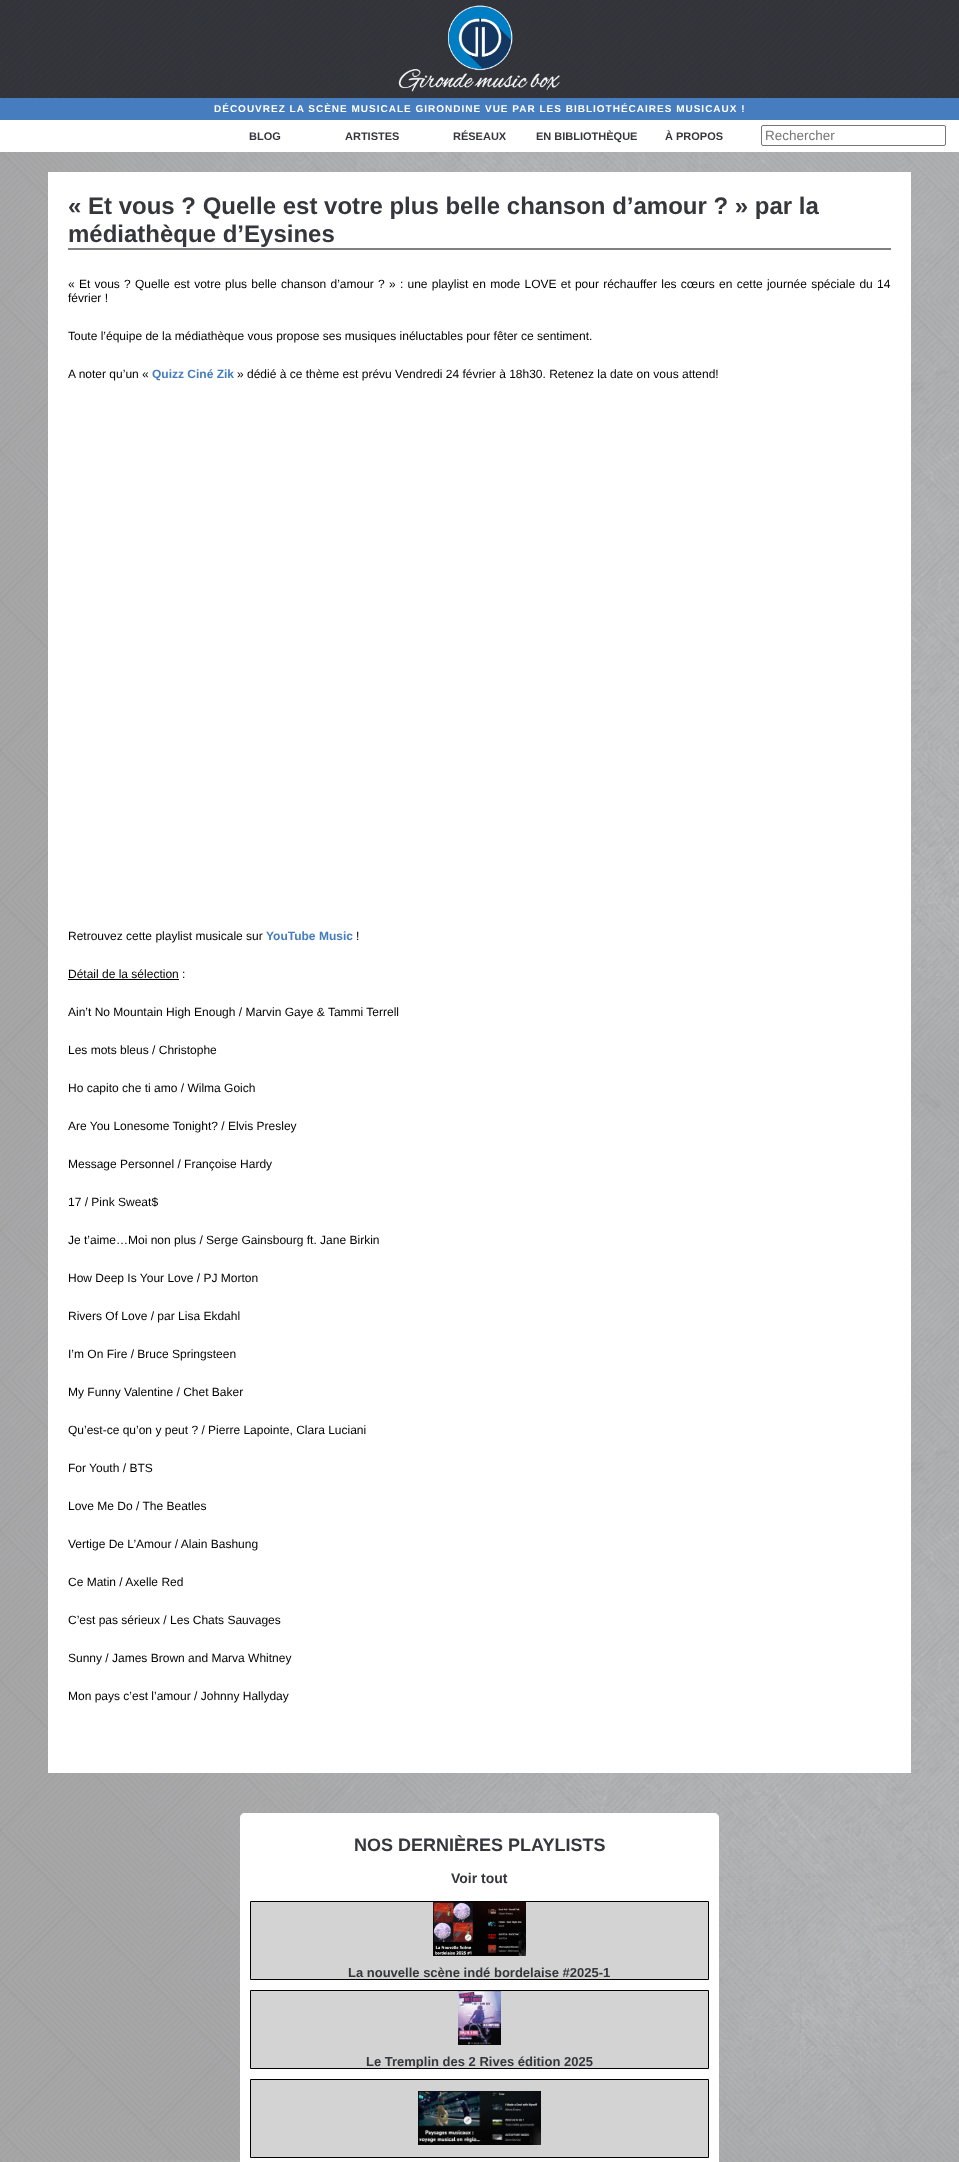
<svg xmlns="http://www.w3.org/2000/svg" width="959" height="2162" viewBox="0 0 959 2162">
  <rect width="100%" height="100%" fill="#fff"/>
  <image x="0" y="152" width="959" height="2010" href="img/1.png"/>
  <image x="0" y="0" width="959" height="98" href="img/2.png"/>
  <image x="398" y="5" width="162" height="89" href="img/3.png"/>
  <path d="M0 98h959v22H0z" fill="#457dbf"/>
  <rect x="761.5" y="125.5" width="184" height="20" rx="1.5" fill="none" stroke="#767676"/>
  <path d="M48 172h863v1601H48z" fill="#fff"/>
  <path d="M68 248h823v2H68z" fill="#808080"/>
  <path d="M68 979h111v1H68z" fill="#000"/>
  <path d="M245 1813H714C717 1813 719 1815 719 1818V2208H240V1818C240 1815 242 1813 245 1813Z" fill="#fff"/>
  <path d="M250.5 1901.5h458v78H250.5z" fill="#d3d3d3" stroke="#000"/>
  <image x="433" y="1902" width="93" height="54" href="img/4.png"/>
  <path d="M250.5 1990.5h458v78H250.5z" fill="#d3d3d3" stroke="#000"/>
  <image x="458" y="1991" width="43" height="54" href="img/5.png"/>
  <path d="M250.5 2079.5h458v78H250.5z" fill="#d3d3d3" stroke="#000"/>
  <image x="418" y="2091" width="123" height="54" href="img/6.png"/>
  <text x="214" y="112" font-family="Liberation Sans" font-size="10" font-weight="bold" letter-spacing="1" fill="#fff">DÉCOUVREZ LA SCÈNE MUSICALE GIRONDINE VUE PAR LES BIBLIOTHÉCAIRES MUSICAUX !</text>
  <g font-family="Liberation Sans" font-size="11" font-weight="bold" fill="#35373d">
    <text x="249" y="140">BLOG</text>
    <text x="345" y="140">ARTISTES</text>
    <text x="453" y="140">RÉSEAUX</text>
    <text x="536" y="140">EN BIBLIOTHÈQUE</text>
    <text x="665" y="140">À PROPOS</text>
  </g>
  <text x="765" y="140" font-family="Liberation Sans" font-size="13.5" fill="#757575">Rechercher</text>
  <g font-family="Liberation Sans" font-size="24" font-weight="bold" fill="#35373d">
    <text x="68" y="214">« Et vous ? Quelle est votre plus belle chanson d’amour ? » par la</text>
    <text x="68" y="242">médiathèque d’Eysines</text>
  </g>
  <g font-family="Liberation Sans" font-size="12" fill="#000">
    <text x="68" y="288" word-spacing="0.9">« Et vous ? Quelle est votre plus belle chanson d’amour ? » : une playlist en mode LOVE et pour réchauffer les cœurs en cette journée spéciale du 14</text>
    <text x="68" y="302">février !</text>
    <text x="68" y="340">Toute l’équipe de la médiathèque vous propose ses musiques inéluctables pour fêter ce sentiment.</text>
    <text x="68" y="378">A noter qu’un «</text>
  </g>
  <text x="152" y="378" font-family="Liberation Sans" font-size="12" font-weight="bold" fill="#457dbf">Quizz Ciné Zik</text>
  <g font-family="Liberation Sans" font-size="12" fill="#000">
    <text x="237" y="378">» dédié à ce thème est prévu Vendredi 24 février à 18h30. Retenez la date on vous attend!</text>
    <text x="68" y="940">Retrouvez cette playlist musicale sur</text>
  </g>
  <text x="266" y="940" font-family="Liberation Sans" font-size="12" font-weight="bold" fill="#457dbf">YouTube Music</text>
  <g font-family="Liberation Sans" font-size="12" fill="#000">
    <text x="356" y="940">!</text>
    <text x="68" y="978">Détail de la sélection</text>
    <text x="182" y="978">:</text>
    <text x="68" y="1016">Ain’t No Mountain High Enough / Marvin Gaye &amp; Tammi Terrell</text>
    <text x="68" y="1054">Les mots bleus / Christophe</text>
    <text x="68" y="1092">Ho capito che ti amo / Wilma Goich</text>
    <text x="68" y="1130">Are You Lonesome Tonight? / Elvis Presley</text>
    <text x="68" y="1168">Message Personnel / Françoise Hardy</text>
    <text x="68" y="1206">17 / Pink Sweat$</text>
    <text x="68" y="1244">Je t’aime…Moi non plus / Serge Gainsbourg ft. Jane Birkin</text>
    <text x="68" y="1282">How Deep Is Your Love / PJ Morton</text>
    <text x="68" y="1320">Rivers Of Love / par Lisa Ekdahl</text>
    <text x="68" y="1358">I’m On Fire / Bruce Springsteen</text>
    <text x="68" y="1396">My Funny Valentine / Chet Baker</text>
    <text x="68" y="1434">Qu’est-ce qu’on y peut ? / Pierre Lapointe, Clara Luciani</text>
    <text x="68" y="1472">For Youth / BTS</text>
    <text x="68" y="1510">Love Me Do / The Beatles</text>
    <text x="68" y="1548">Vertige De L’Amour / Alain Bashung</text>
    <text x="68" y="1586">Ce Matin / Axelle Red</text>
    <text x="68" y="1624">C’est pas sérieux / Les Chats Sauvages</text>
    <text x="68" y="1662">Sunny / James Brown and Marva Whitney</text>
    <text x="68" y="1700">Mon pays c’est l’amour / Johnny Hallyday</text>
  </g>
  <text x="354" y="1851" font-family="Liberation Sans" font-size="18" font-weight="bold" fill="#35373d">NOS DERNIÈRES PLAYLISTS</text>
  <text x="451" y="1883" font-family="Liberation Sans" font-size="14" font-weight="bold" fill="#35373d">Voir tout</text>
  <g font-family="Liberation Sans" font-size="13" font-weight="bold" fill="#35373d">
    <text x="348" y="1977">La nouvelle scène indé bordelaise #2025-1</text>
    <text x="366" y="2066">Le Tremplin des 2 Rives édition 2025</text>
  </g>
</svg>
